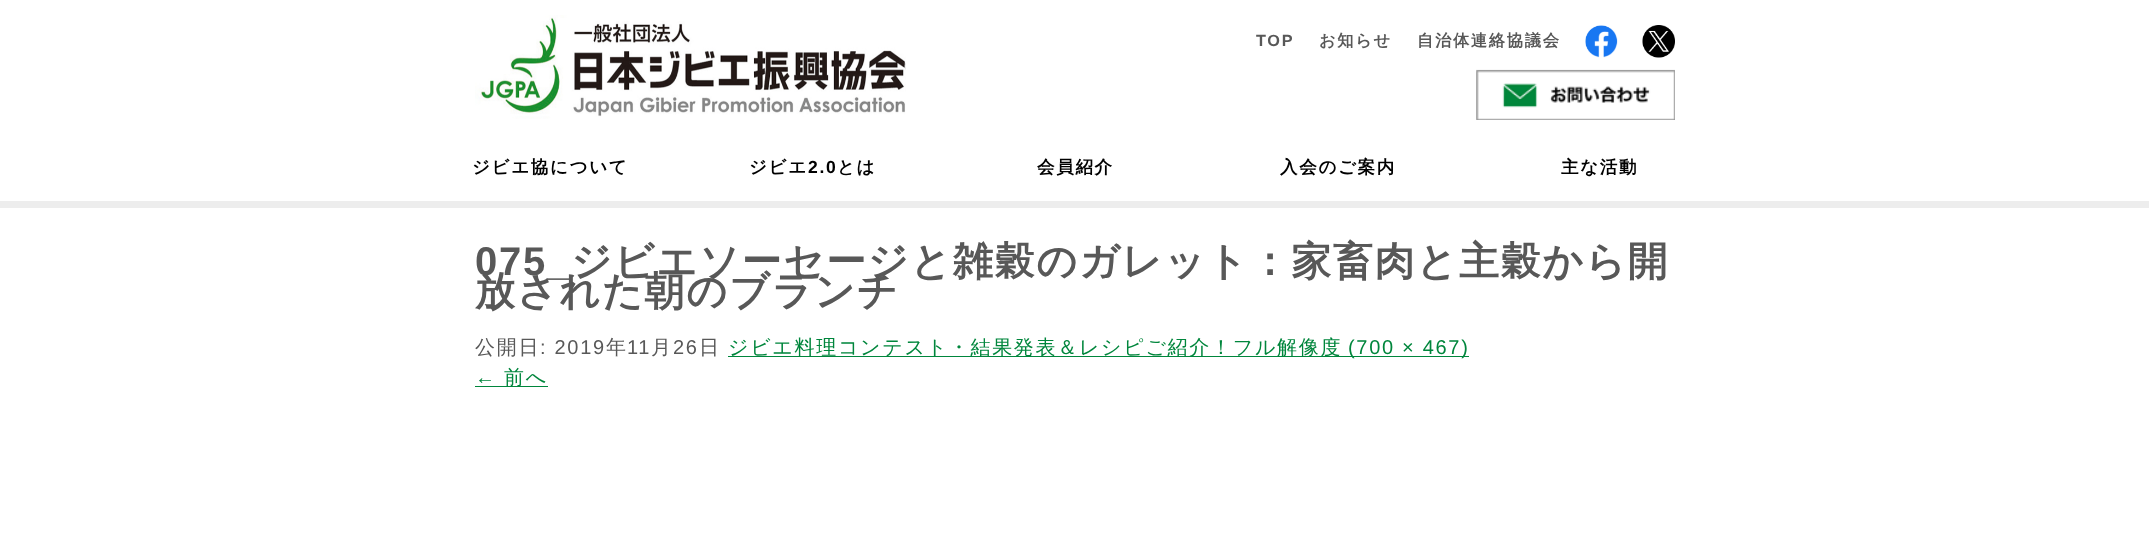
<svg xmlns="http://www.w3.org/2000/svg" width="2149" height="552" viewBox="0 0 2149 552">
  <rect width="100%" height="100%" fill="#fff"/>
  <image x="475" y="15" width="431" height="104" href="img/1.png"/>
  <image x="1585" y="25" width="33" height="33" href="img/2.png"/>
  <image x="1642" y="25" width="33" height="33" href="img/3.png"/>
  <image x="1476" y="69" width="199" height="51" href="img/4.png"/>
  <path d="M0 201h2149v7H0z" fill="#ededed"/>
  <path d="M728 356h741v1H728z" fill="#00863c"/>
  <path d="M475 386h73v1H475z" fill="#00863c"/>
  <text x="1256" y="46" font-family="Liberation Sans" font-size="16.25" font-weight="bold" letter-spacing="1.7" fill="#585858">TOP</text>
  <g font-family="WenQuanYi Zen Hei" font-size="16.25" font-weight="bold" letter-spacing="1.7" fill="#585858">
    <text x="1319" y="46">お知らせ</text>
    <text x="1417" y="46">自治体連絡協議会</text>
  </g>
  <g font-family="WenQuanYi Zen Hei" font-size="17.5" font-weight="bold" letter-spacing="1.7" fill="#000">
    <text x="472" y="173">ジビエ協について</text>
    <text x="749" y="173">ジビエ</text>
  </g>
  <text x="808" y="173" font-family="Liberation Sans" font-size="17.5" font-weight="bold" letter-spacing="1.7" fill="#000">2.0</text>
  <g font-family="WenQuanYi Zen Hei" font-size="17.5" font-weight="bold" letter-spacing="1.7" fill="#000">
    <text x="837" y="173">とは</text>
    <text x="1037" y="173">会員紹介</text>
    <text x="1280" y="173">入会のご案内</text>
    <text x="1561" y="173">主な活動</text>
  </g>
  <text x="475" y="275" font-family="Liberation Sans" font-size="40" font-weight="bold" letter-spacing="1.7" fill="#585858">075_</text>
  <g font-family="WenQuanYi Zen Hei" font-size="40" font-weight="bold" letter-spacing="1.7" fill="#585858">
    <text x="571" y="275">ジビエソーセージと雑穀のガレット：家畜肉と主穀から開</text>
    <text x="475" y="305">放された朝のブランチ</text>
  </g>
  <text x="475" y="354" font-family="WenQuanYi Zen Hei" font-size="20" font-weight="500" letter-spacing="1.7" fill="#585858">公開日</text>
  <text x="540" y="354" font-family="Liberation Sans" font-size="20" letter-spacing="1.7" fill="#585858">: 2019</text>
  <text x="606" y="354" font-family="WenQuanYi Zen Hei" font-size="20" font-weight="500" letter-spacing="1.7" fill="#585858">年</text>
  <text x="627" y="354" font-family="Liberation Sans" font-size="20" letter-spacing="1.7" fill="#585858">11</text>
  <text x="651" y="354" font-family="WenQuanYi Zen Hei" font-size="20" font-weight="500" letter-spacing="1.7" fill="#585858">月</text>
  <text x="673" y="354" font-family="Liberation Sans" font-size="20" letter-spacing="1.7" fill="#585858">26</text>
  <text x="699" y="354" font-family="WenQuanYi Zen Hei" font-size="20" font-weight="500" letter-spacing="1.7" fill="#585858">日</text>
  <text x="728" y="354" font-family="WenQuanYi Zen Hei" font-size="20" font-weight="500" letter-spacing="1.7" fill="#00863c">ジビエ料理コンテスト・結果発表＆レシピご紹介！フル解像度</text>
  <g font-family="Liberation Sans" font-size="20" letter-spacing="1.7" fill="#00863c">
    <text x="1348" y="354">(700 × 467)</text>
    <text x="475" y="384">←</text>
  </g>
  <text x="504" y="384" font-family="WenQuanYi Zen Hei" font-size="20" font-weight="500" letter-spacing="1.7" fill="#00863c">前へ</text>
</svg>
